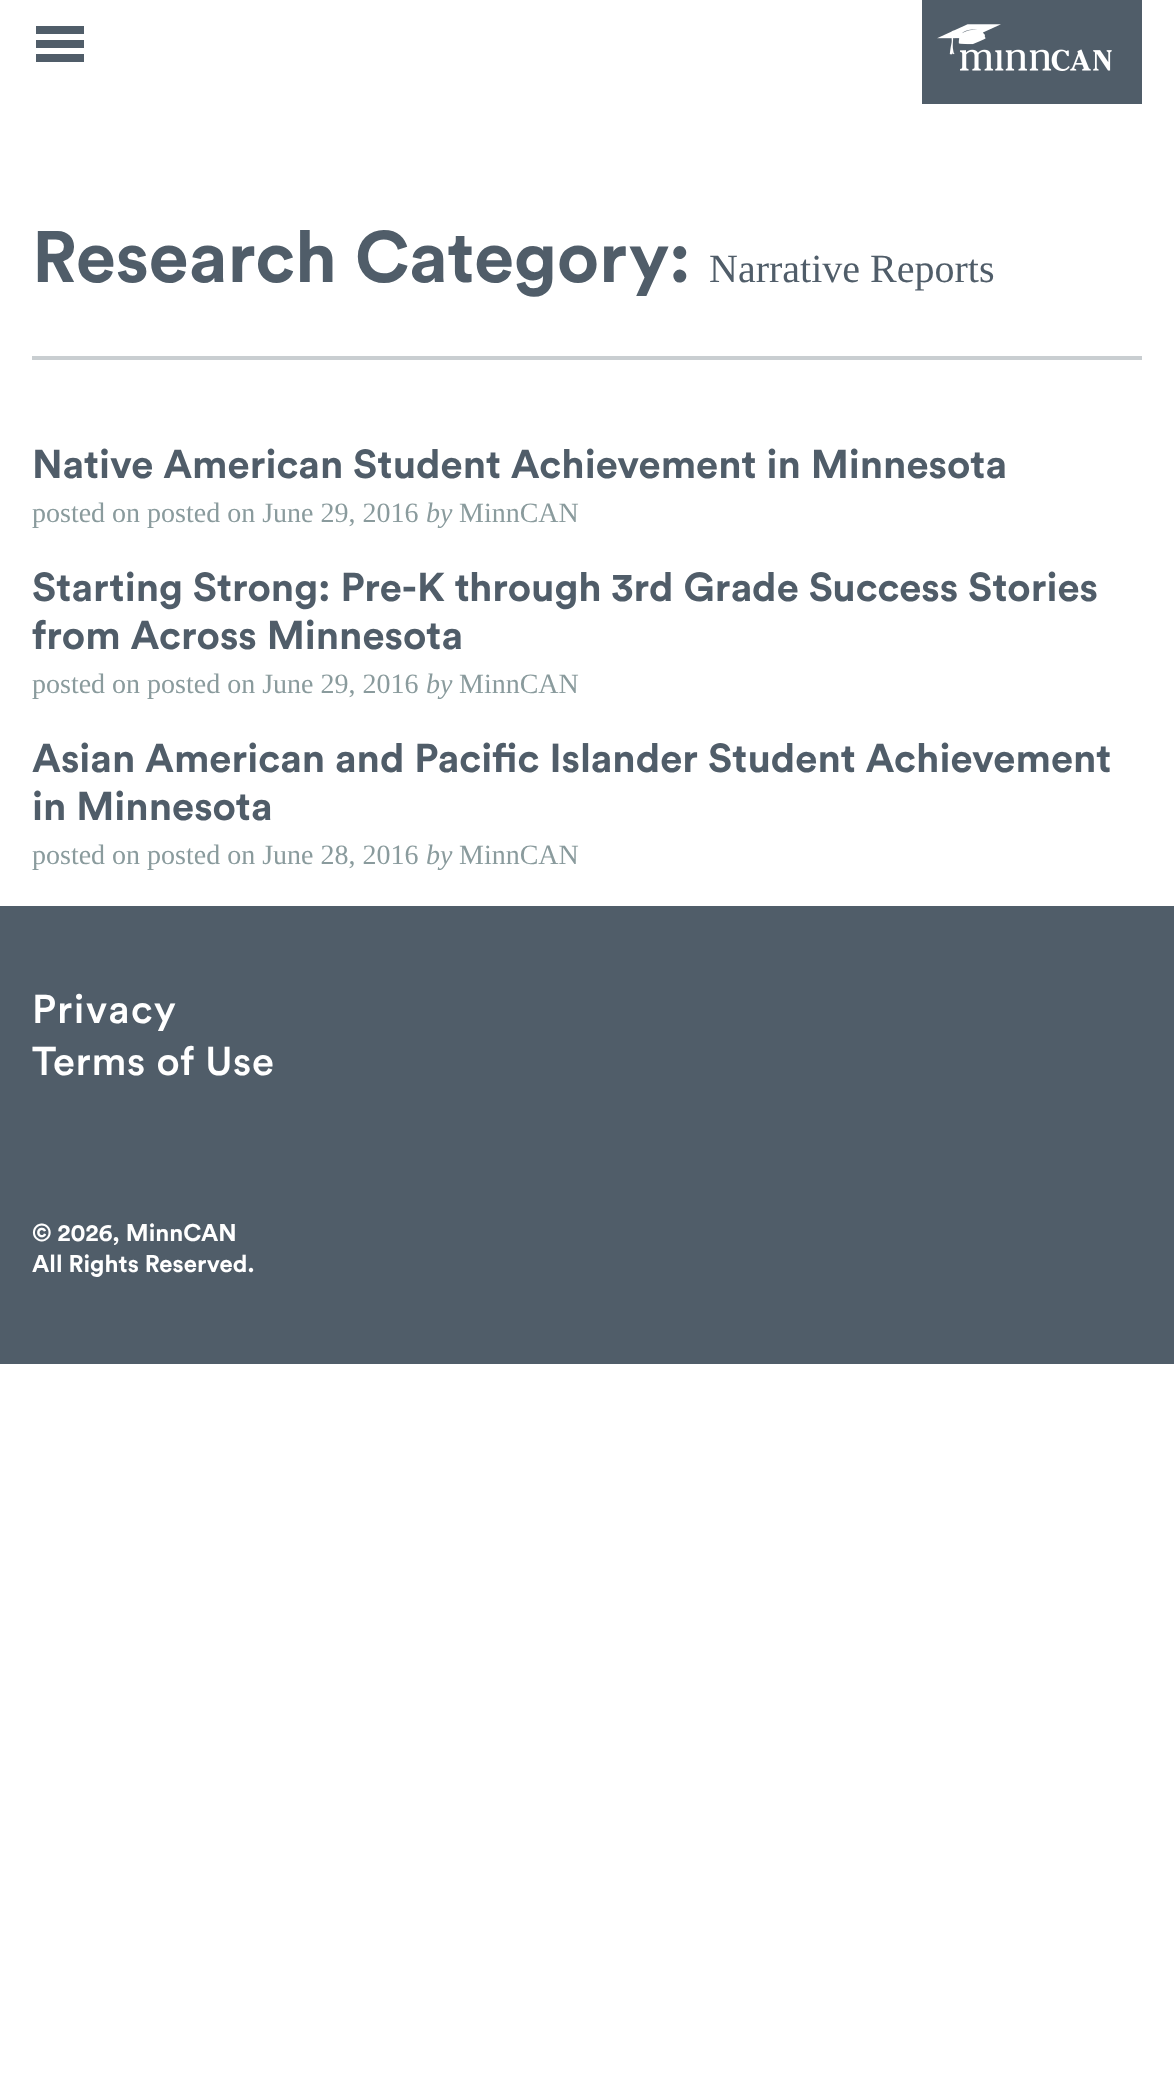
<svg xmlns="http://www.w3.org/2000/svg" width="1174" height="2093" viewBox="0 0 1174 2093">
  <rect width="100%" height="100%" fill="#fff"/>
  <path d="M36 26h48v8H36z" fill="#505d69"/>
  <path d="M36 40h48v8H36z" fill="#505d69"/>
  <path d="M36 54h48v8H36z" fill="#505d69"/>
  <path d="M922 0h220v104H922z" fill="#505d69"/>
  <image x="937" y="24" width="175" height="47" href="img/1.png"/>
  <path d="M32 356h1110v4H32z" fill="#c9ced1"/>
  <path d="M0 906h1174v458H0z" fill="#505d69"/>
  <text x="32" y="282" font-family="Circular" font-size="72" font-weight="bold" fill="#505d69">Research Category:</text>
  <text x="709" y="282" font-family="Liberation Serif" font-size="40" fill="#505d69">Narrative Reports</text>
  <text x="32" y="478" font-family="Circular" font-size="40" font-weight="bold" fill="#505d69">Native American Student Achievement in Minnesota</text>
  <text x="32" y="522" font-family="Liberation Serif" font-size="28" fill="#8a9b9d">posted on posted on June 29, 2016</text>
  <text x="426" y="522" font-family="Liberation Serif" font-size="28" font-style="italic" fill="#8a9b9d">by</text>
  <text x="459" y="522" font-family="Liberation Serif" font-size="28" fill="#8a9b9d">MinnCAN</text>
  <g font-family="Circular" font-size="40" font-weight="bold" fill="#505d69">
    <text x="32" y="601">Starting Strong: Pre-K through 3rd Grade Success Stories</text>
    <text x="32" y="649">from Across Minnesota</text>
  </g>
  <text x="32" y="693" font-family="Liberation Serif" font-size="28" fill="#8a9b9d">posted on posted on June 29, 2016</text>
  <text x="426" y="693" font-family="Liberation Serif" font-size="28" font-style="italic" fill="#8a9b9d">by</text>
  <text x="459" y="693" font-family="Liberation Serif" font-size="28" fill="#8a9b9d">MinnCAN</text>
  <g font-family="Circular" font-size="40" font-weight="bold" fill="#505d69">
    <text x="32" y="772">Asian American and Pacific Islander Student Achievement</text>
    <text x="32" y="820">in Minnesota</text>
  </g>
  <text x="32" y="864" font-family="Liberation Serif" font-size="28" fill="#8a9b9d">posted on posted on June 28, 2016</text>
  <text x="426" y="864" font-family="Liberation Serif" font-size="28" font-style="italic" fill="#8a9b9d">by</text>
  <text x="459" y="864" font-family="Liberation Serif" font-size="28" fill="#8a9b9d">MinnCAN</text>
  <text x="32" y="1023" font-family="Circular" font-size="40" font-weight="500" letter-spacing="1.5" fill="#fff">Privacy</text>
  <text x="32" y="1075" font-family="Circular" font-size="40" font-weight="500" letter-spacing="0.6" fill="#fff">Terms of Use</text>
  <g font-family="Circular" font-size="24" font-weight="bold" fill="#fff">
    <text x="32" y="1241">© 2026, MinnCAN</text>
    <text x="32" y="1272">All Rights Reserved.</text>
  </g>
</svg>
